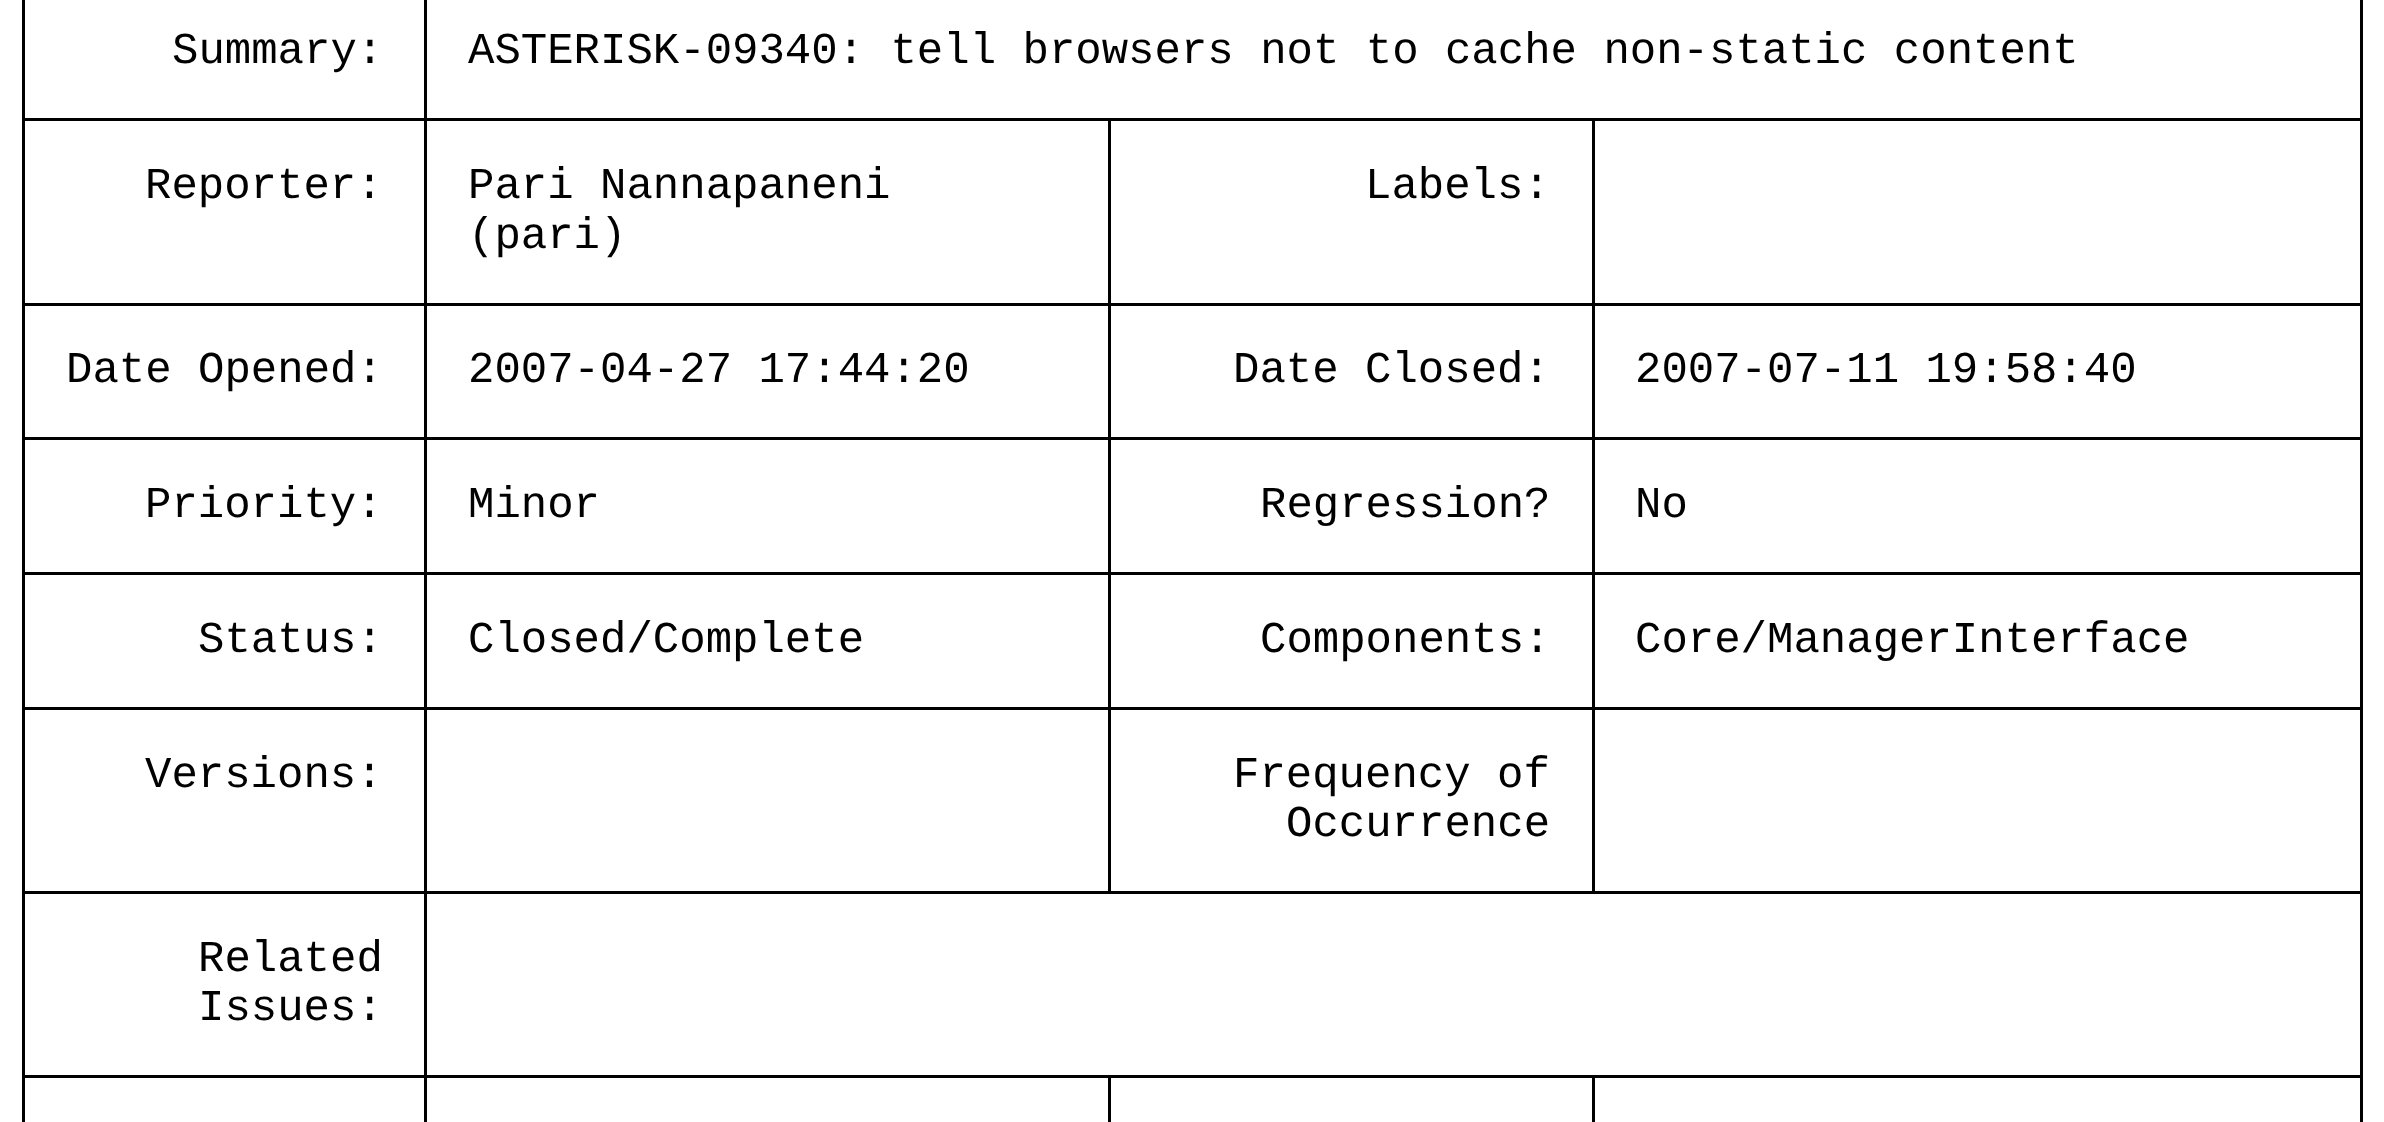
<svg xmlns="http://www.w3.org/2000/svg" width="2384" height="1122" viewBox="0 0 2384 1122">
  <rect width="100%" height="100%" fill="#fff"/>
  <path d="M1592 118h770v3H1592z" fill="#000"/>
  <path d="M1592 303h770v3H1592z" fill="#000"/>
  <path d="M1592 437h770v3H1592z" fill="#000"/>
  <path d="M1592 572h770v3H1592z" fill="#000"/>
  <path d="M1592 707h770v3H1592z" fill="#000"/>
  <path d="M424 891h1938v3H424z" fill="#000"/>
  <path d="M1592 707h3v187H1592z" fill="#000"/>
  <path d="M1108 707h487v3H1108z" fill="#000"/>
  <path d="M1592 572h3v138H1592z" fill="#000"/>
  <path d="M1108 572h487v3H1108z" fill="#000"/>
  <path d="M1592 437h3v138H1592z" fill="#000"/>
  <path d="M1108 437h487v3H1108z" fill="#000"/>
  <path d="M1592 303h3v137H1592z" fill="#000"/>
  <path d="M1108 303h487v3H1108z" fill="#000"/>
  <path d="M1592 118h3v187H1592z" fill="#000"/>
  <path d="M1108 118h487v3H1108z" fill="#000"/>
  <path d="M1108 707h3v187H1108z" fill="#000"/>
  <path d="M424 707h687v3H424z" fill="#000"/>
  <path d="M1108 572h3v138H1108z" fill="#000"/>
  <path d="M424 572h687v3H424z" fill="#000"/>
  <path d="M1108 437h3v138H1108z" fill="#000"/>
  <path d="M424 437h687v3H424z" fill="#000"/>
  <path d="M1108 303h3v137H1108z" fill="#000"/>
  <path d="M424 303h687v3H424z" fill="#000"/>
  <path d="M1108 118h3v187H1108z" fill="#000"/>
  <path d="M424 118h687v3H424z" fill="#000"/>
  <path d="M1592 1075h770v3H1592z" fill="#000"/>
  <path d="M1592 1075h3v47H1592z" fill="#000"/>
  <path d="M1108 1075h487v3H1108z" fill="#000"/>
  <path d="M1108 1075h3v47H1108z" fill="#000"/>
  <path d="M424 1075h687v3H424z" fill="#000"/>
  <path d="M424 1075h3v47H424z" fill="#000"/>
  <path d="M22 1075h404v3H22z" fill="#000"/>
  <path d="M424 891h3v187H424z" fill="#000"/>
  <path d="M22 891h404v3H22z" fill="#000"/>
  <path d="M424 707h3v187H424z" fill="#000"/>
  <path d="M22 707h404v3H22z" fill="#000"/>
  <path d="M424 572h3v138H424z" fill="#000"/>
  <path d="M22 572h404v3H22z" fill="#000"/>
  <path d="M424 437h3v138H424z" fill="#000"/>
  <path d="M22 437h404v3H22z" fill="#000"/>
  <path d="M424 303h3v137H424z" fill="#000"/>
  <path d="M22 303h404v3H22z" fill="#000"/>
  <path d="M424 118h3v187H424z" fill="#000"/>
  <path d="M22 118h404v3H22z" fill="#000"/>
  <path d="M424 0h3v121H424z" fill="#000"/>
  <path d="M22 1075h3v47H22z" fill="#000"/>
  <path d="M22 891h3v187H22z" fill="#000"/>
  <path d="M22 707h3v187H22z" fill="#000"/>
  <path d="M22 572h3v138H22z" fill="#000"/>
  <path d="M22 437h3v138H22z" fill="#000"/>
  <path d="M22 303h3v137H22z" fill="#000"/>
  <path d="M22 0h3v305H22z" fill="#000"/>
  <path d="M2360 1075h3v47H2360z" fill="#000"/>
  <path d="M2360 891h3v187H2360z" fill="#000"/>
  <path d="M2360 707h3v187H2360z" fill="#000"/>
  <path d="M2360 572h3v138H2360z" fill="#000"/>
  <path d="M2360 437h3v138H2360z" fill="#000"/>
  <path d="M2360 303h3v137H2360z" fill="#000"/>
  <path d="M2360 0h3v305H2360z" fill="#000"/>
  <g font-family="Liberation Mono" font-size="44" fill="#000">
    <text x="172" y="63">Summary:</text>
    <text x="468" y="63">ASTERISK-09340: tell browsers not to cache non-static content</text>
    <text x="145" y="198">Reporter:</text>
    <text x="468" y="198">Pari Nannapaneni</text>
    <text x="468" y="248">(pari)</text>
    <text x="1365" y="198">Labels:</text>
    <text x="66" y="382">Date Opened:</text>
    <text x="468" y="382">2007-04-27 17:44:20</text>
    <text x="1233" y="382">Date Closed:</text>
    <text x="1635" y="382">2007-07-11 19:58:40</text>
    <text x="145" y="517">Priority:</text>
    <text x="468" y="517">Minor</text>
    <text x="1260" y="517">Regression?</text>
    <text x="1635" y="517">No</text>
    <text x="198" y="652">Status:</text>
    <text x="468" y="652">Closed/Complete</text>
    <text x="1260" y="652">Components:</text>
    <text x="1635" y="652">Core/ManagerInterface</text>
    <text x="145" y="787">Versions:</text>
    <text x="1233" y="787">Frequency of</text>
    <text x="1286" y="836">Occurrence</text>
    <text x="198" y="971">Related</text>
    <text x="198" y="1020">Issues:</text>
  </g>
</svg>
